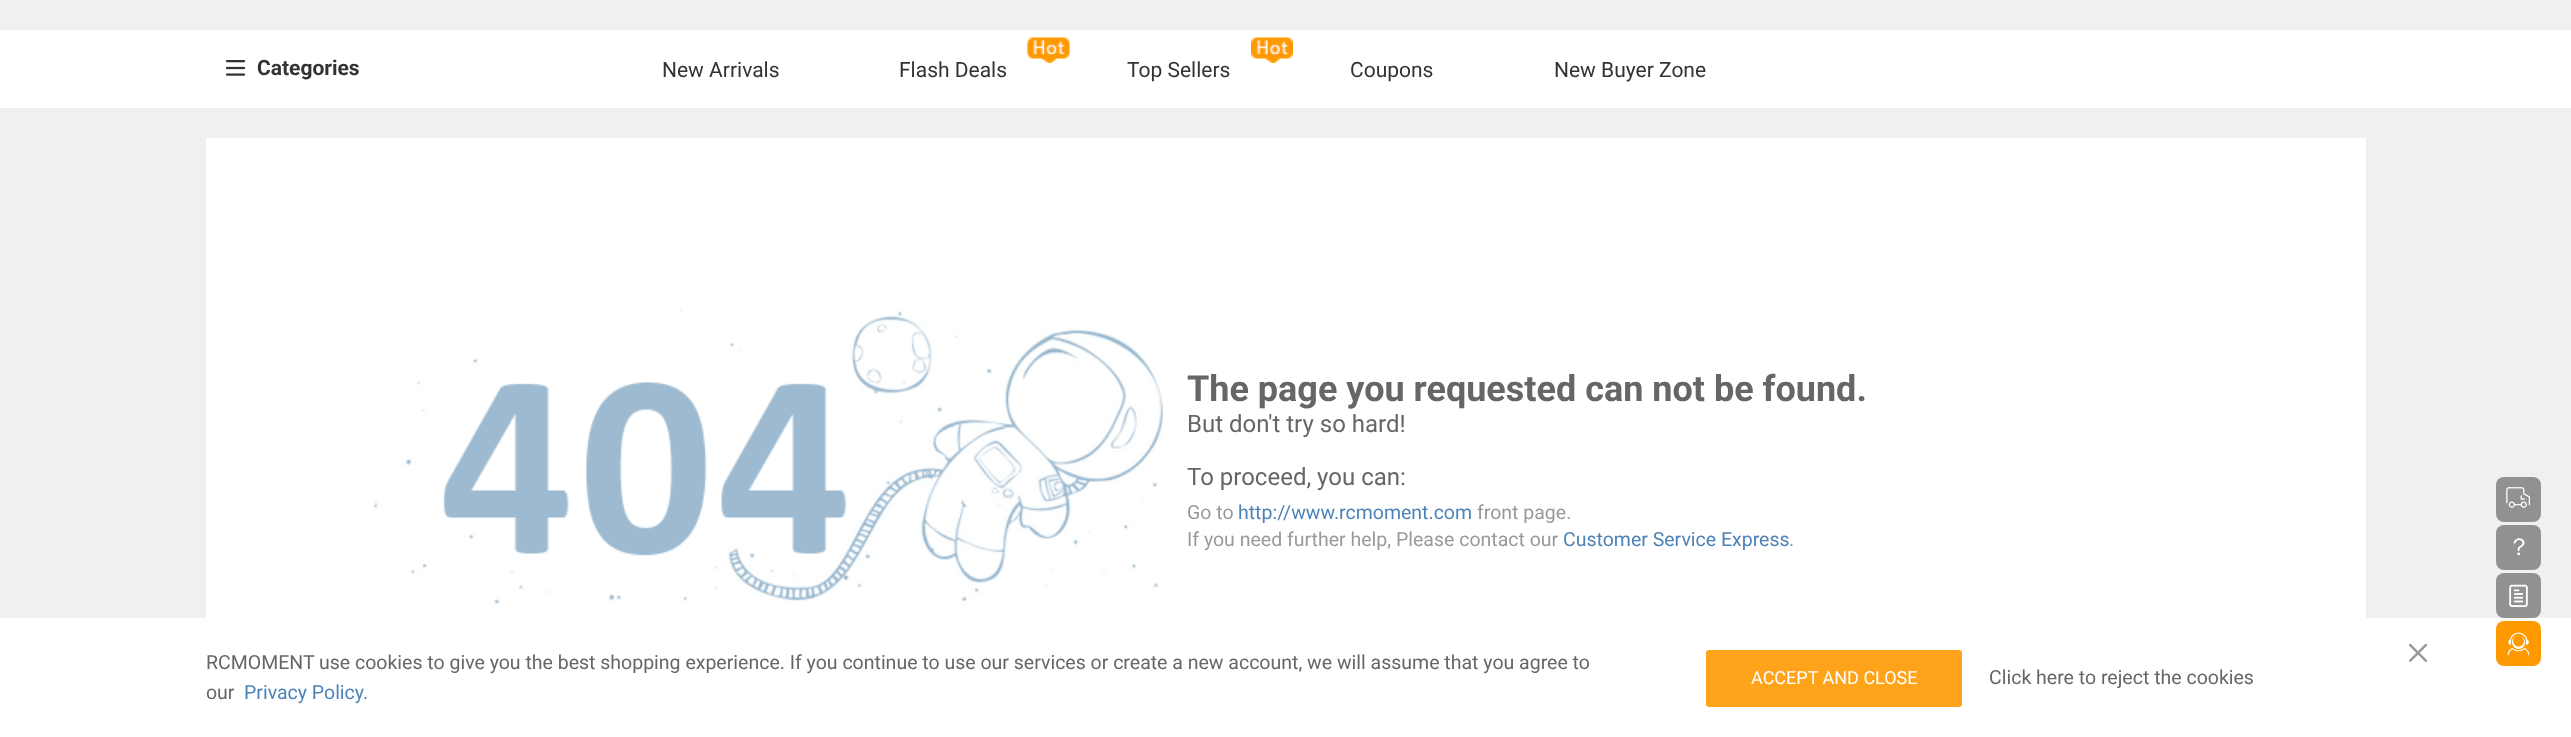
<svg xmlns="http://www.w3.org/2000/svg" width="2571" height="737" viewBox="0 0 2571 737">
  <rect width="100%" height="100%" fill="#f0f0f0"/>
  <path d="M0 30h2571v78H0z" fill="#fff"/>
  <image x="225" y="60" width="21" height="16" href="img/1.png"/>
  <image x="1027" y="37" width="43" height="26" href="img/2.png"/>
  <image x="1251" y="37" width="42" height="26" href="img/3.png"/>
  <path d="M206 138h2160v480H206z" fill="#fff"/>
  <image x="373" y="309" width="791" height="296" href="img/4.png"/>
  <rect x="2496" y="477" width="45" height="45" rx="8" fill="#919191"/>
  <image x="2506" y="487" width="24" height="21" href="img/5.png"/>
  <rect x="2496" y="525" width="45" height="45" rx="8" fill="#919191"/>
  <rect x="2496" y="573" width="45" height="45" rx="8" fill="#919191"/>
  <image x="2509" y="584" width="19" height="24" href="img/6.png"/>
  <path d="M0 618h2571v119H0z" fill="#fff"/>
  <rect x="2496" y="621" width="45" height="45" rx="8" fill="#f90"/>
  <image x="2507" y="632" width="23" height="24" href="img/7.png"/>
  <rect x="1706" y="650" width="256" height="57" rx="3" fill="#ffa31a"/>
  <image x="2409" y="643" width="18" height="19" href="img/8.png"/>
  <text x="257" y="75" font-family="Roboto" font-size="21" font-weight="bold" fill="#333">Categories</text>
  <g font-family="Roboto" font-size="21" fill="#333">
    <text x="662" y="77">New Arrivals</text>
    <text x="899" y="77">Flash Deals</text>
    <text x="1127" y="77">Top Sellers</text>
    <text x="1350" y="77">Coupons</text>
    <text x="1554" y="77">New Buyer Zone</text>
  </g>
  <text x="1187" y="401" font-family="Roboto" font-size="36" font-weight="bold" fill="#666">The page you requested can not be found.</text>
  <g font-family="Roboto" font-size="24" fill="#666">
    <text x="1187" y="432">But don't try so hard!</text>
    <text x="1187" y="485">To proceed, you can:</text>
  </g>
  <text x="1187" y="519" font-family="Roboto" font-size="19.5" fill="#999">Go to</text>
  <text x="1238" y="519" font-family="Roboto" font-size="19.5" fill="#4d82b8">http://www.rcmoment.com</text>
  <g font-family="Roboto" font-size="19.5" fill="#999">
    <text x="1477" y="519">front page.</text>
    <text x="1187" y="546">If you need further help, Please contact our</text>
  </g>
  <text x="1563" y="546" font-family="Roboto" font-size="19.5" fill="#4d82b8">Customer Service Express</text>
  <text x="1789" y="546" font-family="Roboto" font-size="19.5" fill="#999">.</text>
  <text x="2507" y="555" font-family="WenQuanYi Zen Hei" font-size="24" font-weight="500" fill="#fff">？</text>
  <g font-family="Roboto" font-size="19.5" fill="#666">
    <text x="206" y="669">RCMOMENT use cookies to give you the best shopping experience. If you continue to use our services or create a new account, we will assume that you agree to</text>
    <text x="206" y="699">our</text>
  </g>
  <text x="244" y="699" font-family="Roboto" font-size="19.5" fill="#4d82b8">Privacy Policy.</text>
  <text x="1751" y="684" font-family="Roboto" font-size="18" fill="#fff">ACCEPT AND CLOSE</text>
  <text x="1989" y="684" font-family="Roboto" font-size="19.5" fill="#666">Click here to reject the cookies</text>
</svg>
